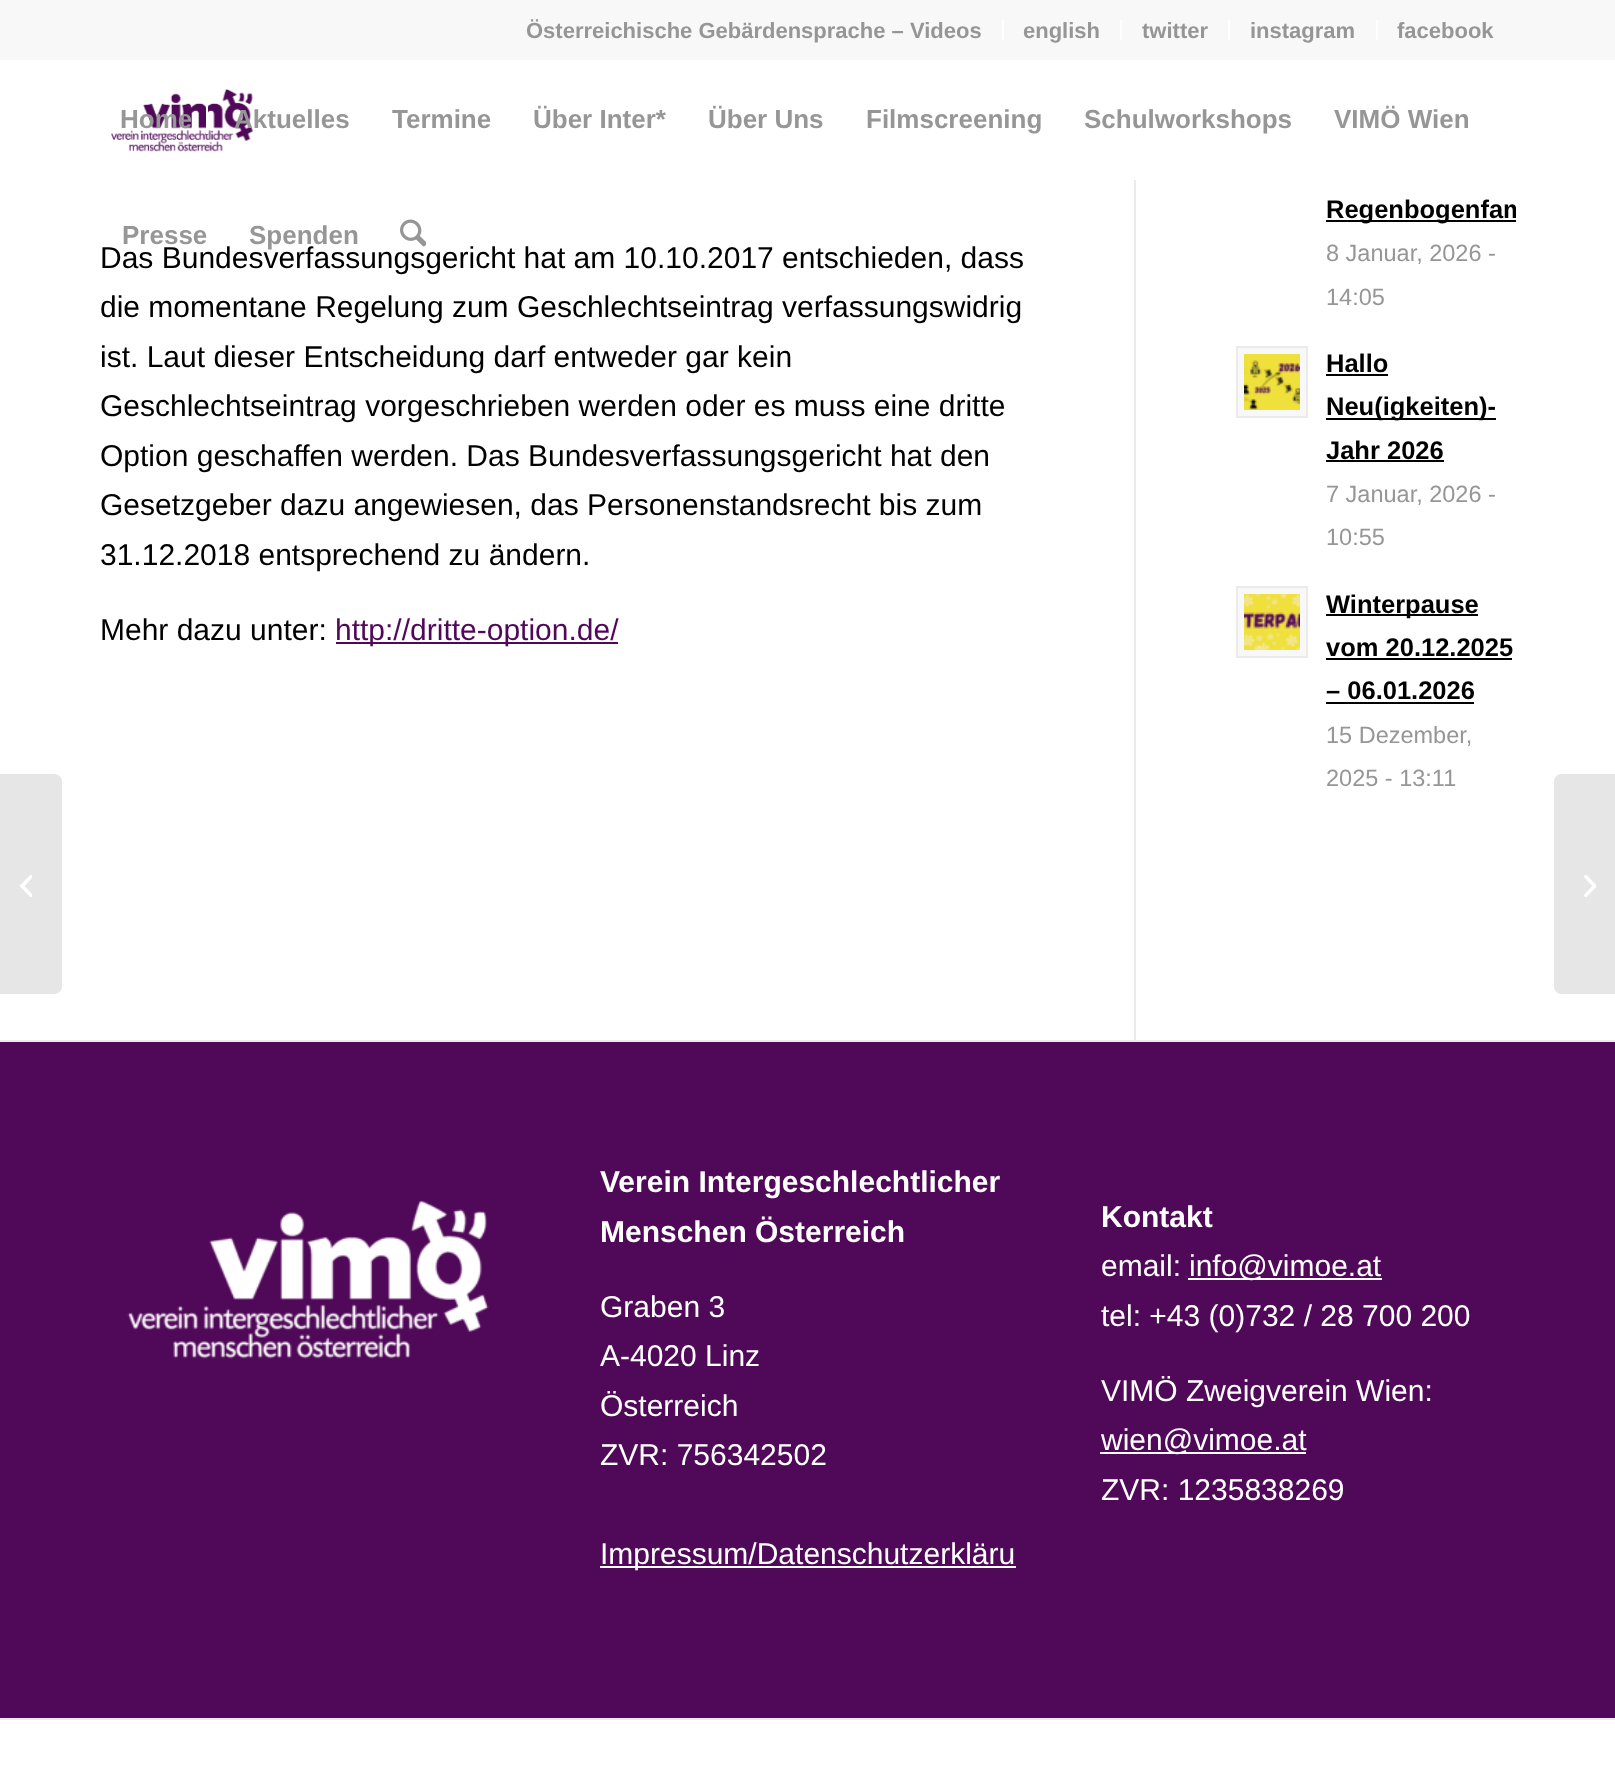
<svg xmlns="http://www.w3.org/2000/svg" width="1615" height="1766" viewBox="0 0 1615 1766">
  <defs>
    <clipPath id="clip1"><path d="M1326 58h190v260H1326z"/></clipPath>
  </defs>
  <rect width="100%" height="100%" fill="#fff"/>
  <path d="M0 0h1615v60H0z" fill="#f8f8f8"/>
  <path d="M1002 20h2v20H1002z" fill="#fff"/>
  <path d="M1120 20h2v20H1120z" fill="#fff"/>
  <path d="M1228 20h2v20H1228z" fill="#fff"/>
  <path d="M1376 20h2v20H1376z" fill="#fff"/>
  <image x="111" y="89" width="142" height="63" href="img/1.png"/>
  <path d="M206 104h2v30H206z" fill="#fff"/>
  <path d="M0 774H54C58.5 774 62 777.5 62 782V986C62 990.5 58.5 994 54 994H0Z" fill="#e6e6e6"/>
  <image x="20" y="875" width="12" height="22" href="img/3.png"/>
  <path d="M1134 180h2v860H1134z" fill="#ebebeb"/>
  <path d="M336 642h282v2H336z" fill="#500959"/>
  <path d="M1326 220h190v2H1326z" fill="#000"/>
  <path d="M1237 347h70v70H1237z" fill="#f8f8f8" stroke="#ebebeb" stroke-width="2"/>
  <image x="1244" y="354" width="56" height="56" href="img/4.png"/>
  <path d="M1326 374h62v2H1326z" fill="#000"/>
  <path d="M1326 418h170v2H1326z" fill="#000"/>
  <path d="M1326 460h118v2H1326z" fill="#000"/>
  <path d="M1237 587h70v70H1237z" fill="#f8f8f8" stroke="#ebebeb" stroke-width="2"/>
  <image x="1244" y="594" width="56" height="56" href="img/5.png"/>
  <path d="M1326 614h152v2H1326z" fill="#000"/>
  <path d="M1326 658h186v2H1326z" fill="#000"/>
  <path d="M1326 702h148v2H1326z" fill="#000"/>
  <path d="M0 1042h1615v676H0z" fill="#500959"/>
  <path d="M0 1040h1615v2H0z" fill="#ebebeb"/>
  <image x="127" y="1200" width="362" height="159" href="img/6.png"/>
  <path d="M600 1566h416v2H600z" fill="#fff"/>
  <path d="M1188 1278h194v2H1188z" fill="#fff"/>
  <path d="M1100 1452h206v2H1100z" fill="#fff"/>
  <path d="M0 1718h1615v2H0z" fill="#ebebeb"/>
  <path d="M1562 774H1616V994H1562C1557.5 994 1554 990.5 1554 986V782C1554 777.5 1557.5 774 1562 774Z" fill="#e6e6e6"/>
  <image x="1584" y="875" width="12" height="22" href="img/7.png"/>
  <g font-family="Liberation Sans" font-size="22" font-weight="bold" fill="#969696">
    <text x="526" y="38">Österreichische Gebärdensprache – Videos</text>
    <text x="1023" y="38">english</text>
    <text x="1142" y="38">twitter</text>
    <text x="1250" y="38">instagram</text>
    <text x="1397" y="38">facebook</text>
  </g>
  <g font-family="Liberation Sans" font-size="26" font-weight="bold" fill="#969696">
    <text x="120" y="128">Home</text>
    <text x="234" y="128">Aktuelles</text>
    <text x="392" y="128">Termine</text>
    <text x="533" y="128">Über Inter*</text>
    <text x="708" y="128">Über Uns</text>
    <text x="866" y="128">Filmscreening</text>
    <text x="1084" y="128">Schulworkshops</text>
    <text x="1334" y="128">VIMÖ Wien</text>
    <text x="122" y="244">Presse</text>
    <text x="249" y="244">Spenden</text>
  </g>
  <text x="100" y="268" font-family="Liberation Sans" font-size="30" fill="#000">Das Bundesverfassungsgericht hat am 10.10.2017 entschieden, dass</text>
  <image x="400" y="219" width="26" height="28" href="img/2.png"/>
  <g font-family="Liberation Sans" font-size="30" fill="#000">
    <text x="100" y="317">die momentane Regelung zum Geschlechtseintrag verfassungswidrig</text>
    <text x="100" y="367">ist. Laut dieser Entscheidung darf entweder gar kein</text>
    <text x="100" y="416">Geschlechtseintrag vorgeschrieben werden oder es muss eine dritte</text>
    <text x="100" y="466">Option geschaffen werden. Das Bundesverfassungsgericht hat den</text>
    <text x="100" y="515">Gesetzgeber dazu angewiesen, das Personenstandsrecht bis zum</text>
    <text x="100" y="565">31.12.2018 entsprechend zu ändern.</text>
    <text x="100" y="640">Mehr dazu unter:</text>
  </g>
  <text x="335" y="640" font-family="Liberation Sans" font-size="30" fill="#500959">http://dritte-option.de/</text>
  <g clip-path="url(#clip1)">
    <text x="1326" y="218" font-family="Liberation Sans" font-size="25.5" font-weight="bold" fill="#000">Regenbogenfam</text>
  </g>
  <g font-family="Liberation Sans" font-size="23.5" fill="#969696">
    <text x="1326" y="261">8 Januar, 2026 -</text>
    <text x="1326" y="305">14:05</text>
  </g>
  <g font-family="Liberation Sans" font-size="25.5" font-weight="bold" fill="#000">
    <text x="1326" y="372">Hallo</text>
    <text x="1326" y="415">Neu(igkeiten)-</text>
    <text x="1326" y="459">Jahr 2026</text>
  </g>
  <g font-family="Liberation Sans" font-size="23.5" fill="#969696">
    <text x="1326" y="502">7 Januar, 2026 -</text>
    <text x="1326" y="545">10:55</text>
  </g>
  <g font-family="Liberation Sans" font-size="25.5" font-weight="bold" fill="#000">
    <text x="1326" y="613">Winterpause</text>
    <text x="1326" y="656">vom 20.12.2025</text>
    <text x="1326" y="699">– 06.01.2026</text>
  </g>
  <g font-family="Liberation Sans" font-size="23.5" fill="#969696">
    <text x="1326" y="743">15 Dezember,</text>
    <text x="1326" y="786">2025 - 13:11</text>
  </g>
  <g font-family="Liberation Sans" font-size="30" font-weight="bold" fill="#fff">
    <text x="600" y="1192">Verein Intergeschlechtlicher</text>
    <text x="600" y="1242">Menschen Österreich</text>
  </g>
  <g font-family="Liberation Sans" font-size="30" fill="#fff">
    <text x="600" y="1317">Graben 3</text>
    <text x="600" y="1366">A-4020 Linz</text>
    <text x="600" y="1416">Österreich</text>
    <text x="600" y="1465">ZVR: 756342502</text>
    <text x="600" y="1564">Impressum/Datenschutzerkläru</text>
  </g>
  <text x="1101" y="1227" font-family="Liberation Sans" font-size="30" font-weight="bold" fill="#fff">Kontakt</text>
  <g font-family="Liberation Sans" font-size="30" fill="#fff">
    <text x="1101" y="1276">email:</text>
    <text x="1189" y="1276">info@vimoe.at</text>
    <text x="1101" y="1326">tel: +43 (0)732 / 28 700 200</text>
    <text x="1101" y="1401">VIMÖ Zweigverein Wien:</text>
    <text x="1101" y="1450">wien@vimoe.at</text>
    <text x="1101" y="1500">ZVR: 1235838269</text>
  </g>
</svg>
